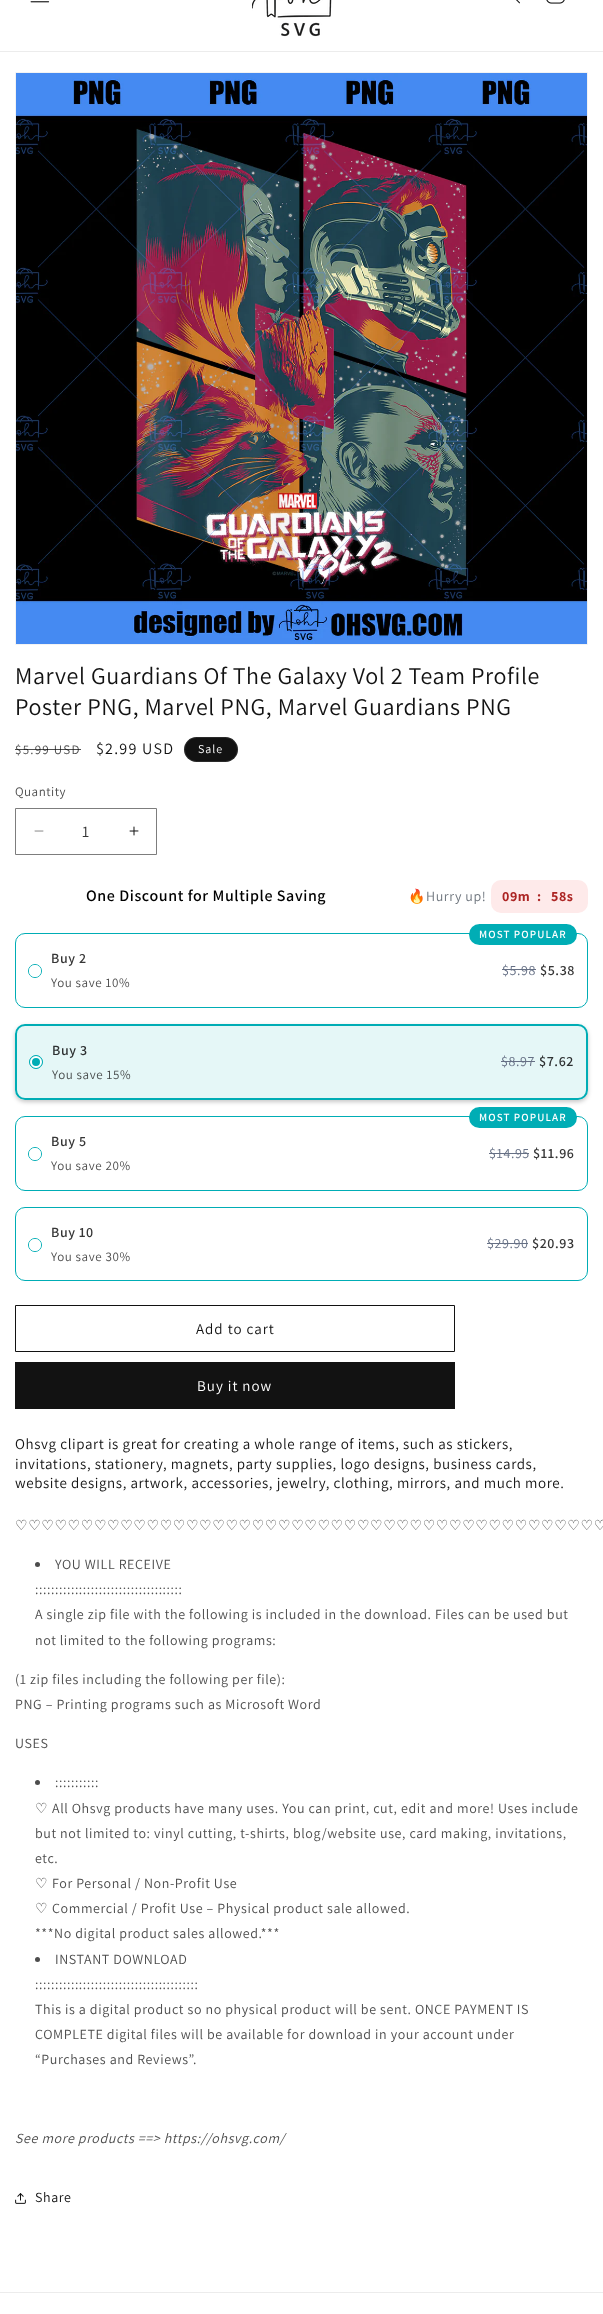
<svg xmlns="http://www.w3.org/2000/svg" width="603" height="2314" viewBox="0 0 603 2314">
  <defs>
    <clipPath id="clip1"><rect x="29" y="965" width="12" height="12" rx="6"/></clipPath>
    <clipPath id="clip2"><path d="M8 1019H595V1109H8ZM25 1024H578C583.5 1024 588 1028.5 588 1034V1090C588 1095.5 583.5 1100 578 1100H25C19.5 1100 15 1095.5 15 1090V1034C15 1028.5 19.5 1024 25 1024Z" clip-rule="evenodd"/></clipPath>
    <clipPath id="clip3"><rect x="29" y="1148" width="12" height="12" rx="6"/></clipPath>
    <clipPath id="clip4"><rect x="29" y="1239" width="12" height="12" rx="6"/></clipPath>
  </defs>
  <rect width="100%" height="100%" fill="#fff"/>
  <path d="M0 51h603v1H0z" fill="#ececec"/>
  <image x="30" y="1" width="20" height="2" href="img/1.png"/>
  <image x="252" y="0" width="80" height="37" href="img/2.png"/>
  <image x="516" y="0" width="4" height="4" href="img/3.png"/>
  <image x="546" y="0" width="19" height="4" href="img/4.png"/>
  <path d="M15.5 72.5h572v572H15.5z" fill="none" stroke="#f3f3f3"/>
  <image x="16" y="73" width="571" height="571" href="img/5.png"/>
  <rect x="184" y="737" width="54" height="25" rx="12.5" fill="#121212"/>
  <rect x="184.5" y="737.5" width="53" height="24" rx="12" fill="none" stroke="#ffffff1a"/>
  <image x="34" y="830" width="10" height="2" href="img/6.png"/>
  <image x="129" y="826" width="10" height="10" href="img/7.png"/>
  <path d="M15.5 808.5h141v46H15.5z" fill="none" stroke="#7d7d7d"/>
  <rect x="491" y="880" width="97" height="33" rx="10" fill="#feeaea"/>
  <rect x="15.5" y="933.5" width="572" height="74" rx="9.5" fill="none" stroke="#00adb5"/>
  <rect x="469" y="924" width="108" height="21" rx="10.5" fill="#00adb5"/>
  <circle cx="35" cy="971" r="6.5" fill="none" stroke="#00adb5"/>
  <g clip-path="url(#clip1)">
    <circle cx="35" cy="971" r="12" fill="#fff"/>
  </g>
  <path d="M502 969h34v1H502z" fill="#667085"/>
  <g clip-path="url(#clip2)">
    <rect x="15" y="1026" width="573" height="76" rx="10" fill="#00000038" filter="blur(2px)"/>
  </g>
  <rect x="16" y="1025" width="571" height="74" rx="9" fill="#00adb51a" stroke="#00adb5" stroke-width="2"/>
  <circle cx="36" cy="1062" r="6.5" fill="#00adb5" stroke="#00adb5"/>
  <circle cx="36" cy="1062" r="5" fill="none" stroke="#fff" stroke-width="2"/>
  <path d="M501 1061h34v1H501z" fill="#667085"/>
  <rect x="15.5" y="1116.5" width="572" height="74" rx="9.5" fill="none" stroke="#00adb5"/>
  <rect x="469" y="1107" width="108" height="21" rx="10.5" fill="#00adb5"/>
  <circle cx="35" cy="1154" r="6.5" fill="none" stroke="#00adb5"/>
  <g clip-path="url(#clip3)">
    <circle cx="35" cy="1154" r="12" fill="#fff"/>
  </g>
  <path d="M489 1153h40v1H489z" fill="#667085"/>
  <rect x="15.5" y="1207.5" width="572" height="73" rx="9.5" fill="none" stroke="#00adb5"/>
  <circle cx="35" cy="1245" r="6.5" fill="none" stroke="#00adb5"/>
  <g clip-path="url(#clip4)">
    <circle cx="35" cy="1245" r="12" fill="#fff"/>
  </g>
  <path d="M487 1243h41v1H487z" fill="#667085"/>
  <path d="M15.5 1305.5h439v46H15.5z" fill="none" stroke="#121212"/>
  <path d="M15 1362h440v47H15z" fill="#121212"/>
  <circle cx="37.5" cy="1564.5" r="2.5" fill="#4d4d4d"/>
  <circle cx="37.5" cy="1782.5" r="2.5" fill="#4d4d4d"/>
  <circle cx="37.5" cy="1959.5" r="2.5" fill="#4d4d4d"/>
  <image x="15" y="2193" width="11" height="11" href="img/8.png"/>
  <path d="M0 2292h603v1H0z" fill="#ececec"/>
  <g font-family="Assistant" font-size="24" letter-spacing="0.6" fill="#121212">
    <text x="15" y="684">Marvel Guardians Of The Galaxy Vol 2 Team Profile</text>
    <text x="15" y="715">Poster PNG, Marvel PNG, Marvel Guardians PNG</text>
  </g>
  <text x="15" y="754" font-family="Assistant" font-size="13" letter-spacing="1.25" fill="#4d4d4d">$5.99 USD</text>
  <path d="M15 749h66v1H15z" fill="#121212bf"/>
  <text x="96" y="754" font-family="Assistant" font-size="16" letter-spacing="1.25" fill="#121212">$2.99 USD</text>
  <text x="198" y="753" font-family="Assistant" font-size="12" letter-spacing="1" fill="#fff">Sale</text>
  <text x="15" y="796" font-family="Assistant" font-size="13" letter-spacing="0.5" fill="#4d4d4d">Quantity</text>
  <text x="82" y="837" font-family="Assistant" font-size="16" fill="#363636">1</text>
  <text x="86" y="901" font-family="Assistant" font-size="16" font-weight="600" letter-spacing="0.6" fill="#000">One Discount for Multiple Saving</text>
  <text x="408" y="901" font-family="Noto Color Emoji" font-size="14" letter-spacing="0.6" fill="#6f767e">🔥</text>
  <text x="426" y="901" font-family="Assistant" font-size="14" letter-spacing="0.6" fill="#6f767e">Hurry up!</text>
  <g font-family="Assistant" font-size="14" font-weight="bold" letter-spacing="0.6" fill="#ac2423">
    <text x="502" y="901">09m</text>
    <text x="537" y="901">:</text>
    <text x="551" y="901">58s</text>
  </g>
  <text x="479" y="938" font-family="Assistant" font-size="11" font-weight="600" letter-spacing="1.1" fill="#fff">MOST POPULAR</text>
  <text x="51" y="963" font-family="Assistant" font-size="14" font-weight="600" letter-spacing="0.6" fill="#363636">Buy 2</text>
  <text x="51" y="987" font-family="Assistant" font-size="13" letter-spacing="0.6" fill="#4d4d4d">You save 10%</text>
  <text x="502" y="975" font-family="Assistant" font-size="14" letter-spacing="0.6" fill="#667085">$5.98</text>
  <text x="540" y="975" font-family="Assistant" font-size="14" font-weight="600" letter-spacing="0.6" fill="#363636">$5.38</text>
  <text x="52" y="1055" font-family="Assistant" font-size="14" font-weight="600" letter-spacing="0.6" fill="#2e3132">Buy 3</text>
  <text x="52" y="1079" font-family="Assistant" font-size="13" letter-spacing="0.6" fill="#474b4b">You save 15%</text>
  <text x="501" y="1066" font-family="Assistant" font-size="14" letter-spacing="0.6" fill="#667085">$8.97</text>
  <text x="539" y="1066" font-family="Assistant" font-size="14" font-weight="600" letter-spacing="0.6" fill="#2e3132">$7.62</text>
  <text x="479" y="1121" font-family="Assistant" font-size="11" font-weight="600" letter-spacing="1.1" fill="#fff">MOST POPULAR</text>
  <text x="51" y="1146" font-family="Assistant" font-size="14" font-weight="600" letter-spacing="0.6" fill="#363636">Buy 5</text>
  <text x="51" y="1170" font-family="Assistant" font-size="13" letter-spacing="0.6" fill="#4d4d4d">You save 20%</text>
  <text x="489" y="1158" font-family="Assistant" font-size="14" letter-spacing="0.6" fill="#667085">$14.95</text>
  <g font-family="Assistant" font-size="14" font-weight="600" letter-spacing="0.6" fill="#363636">
    <text x="533" y="1158">$11.96</text>
    <text x="51" y="1237">Buy 10</text>
  </g>
  <text x="51" y="1261" font-family="Assistant" font-size="13" letter-spacing="0.6" fill="#4d4d4d">You save 30%</text>
  <text x="487" y="1248" font-family="Assistant" font-size="14" letter-spacing="0.6" fill="#667085">$29.90</text>
  <text x="532" y="1248" font-family="Assistant" font-size="14" font-weight="600" letter-spacing="0.6" fill="#363636">$20.93</text>
  <text x="196" y="1334" font-family="Assistant" font-size="15" letter-spacing="1" fill="#121212">Add to cart</text>
  <text x="197" y="1391" font-family="Assistant" font-size="15" letter-spacing="1" fill="#fff">Buy it now</text>
  <g font-family="Assistant" font-size="15" letter-spacing="0.6" fill="#121212">
    <text x="15" y="1449">Ohsvg clipart is great for creating a whole range of items, such as stickers,</text>
    <text x="15" y="1469">invitations, stationery, magnets, party supplies, logo designs, business cards,</text>
    <text x="15" y="1488">website designs, artwork, accessories, jewelry, clothing, mirrors, and much more.</text>
  </g>
  <text x="15" y="1530" font-family="DejaVu Sans" font-size="14" letter-spacing="0.6" fill="#4d4d4d">♡♡♡♡♡♡♡♡♡♡♡♡♡♡♡♡♡♡♡♡♡♡♡♡♡♡♡♡♡♡♡♡♡♡♡♡♡♡♡♡♡♡♡♡♡</text>
  <g font-family="Assistant" font-size="14" letter-spacing="0.6" fill="#4d4d4d">
    <text x="55" y="1569">YOU WILL RECEIVE</text>
    <text x="35" y="1594">:::::::::::::::::::::::::::::::::::::</text>
    <text x="35" y="1619">A single zip file with the following is included in the download. Files can be used but</text>
    <text x="35" y="1645">not limited to the following programs:</text>
    <text x="15" y="1684">(1 zip files including the following per file):</text>
    <text x="15" y="1709">PNG – Printing programs such as Microsoft Word</text>
    <text x="15" y="1748">USES</text>
    <text x="55" y="1787">:::::::::::</text>
  </g>
  <text x="35" y="1813" font-family="DejaVu Sans" font-size="14" letter-spacing="0.6" fill="#4d4d4d">♡</text>
  <g font-family="Assistant" font-size="14" letter-spacing="0.6" fill="#4d4d4d">
    <text x="52" y="1813">All Ohsvg products have many uses. You can print, cut, edit and more! Uses include</text>
    <text x="35" y="1838">but not limited to: vinyl cutting, t-shirts, blog/website use, card making, invitations,</text>
    <text x="35" y="1863">etc.</text>
  </g>
  <text x="35" y="1888" font-family="DejaVu Sans" font-size="14" letter-spacing="0.6" fill="#4d4d4d">♡</text>
  <text x="52" y="1888" font-family="Assistant" font-size="14" letter-spacing="0.6" fill="#4d4d4d">For Personal / Non-Profit Use</text>
  <text x="35" y="1913" font-family="DejaVu Sans" font-size="14" letter-spacing="0.6" fill="#4d4d4d">♡</text>
  <g font-family="Assistant" font-size="14" letter-spacing="0.6" fill="#4d4d4d">
    <text x="52" y="1913">Commercial / Profit Use – Physical product sale allowed.</text>
    <text x="35" y="1938">***No digital product sales allowed.***</text>
    <text x="55" y="1964">INSTANT DOWNLOAD</text>
    <text x="35" y="1989">:::::::::::::::::::::::::::::::::::::::::</text>
    <text x="35" y="2014">This is a digital product so no physical product will be sent. ONCE PAYMENT IS</text>
    <text x="35" y="2039">COMPLETE digital files will be available for download in your account under</text>
    <text x="35" y="2064">“Purchases and Reviews”.</text>
  </g>
  <text x="15" y="2143" font-family="Assistant" font-size="14" font-style="italic" letter-spacing="0.6" fill="#4d4d4d">See more products ==&gt; https://ohsvg.com/</text>
  <text x="35" y="2202" font-family="Assistant" font-size="14" letter-spacing="0.6" fill="#121212">Share</text>
</svg>
